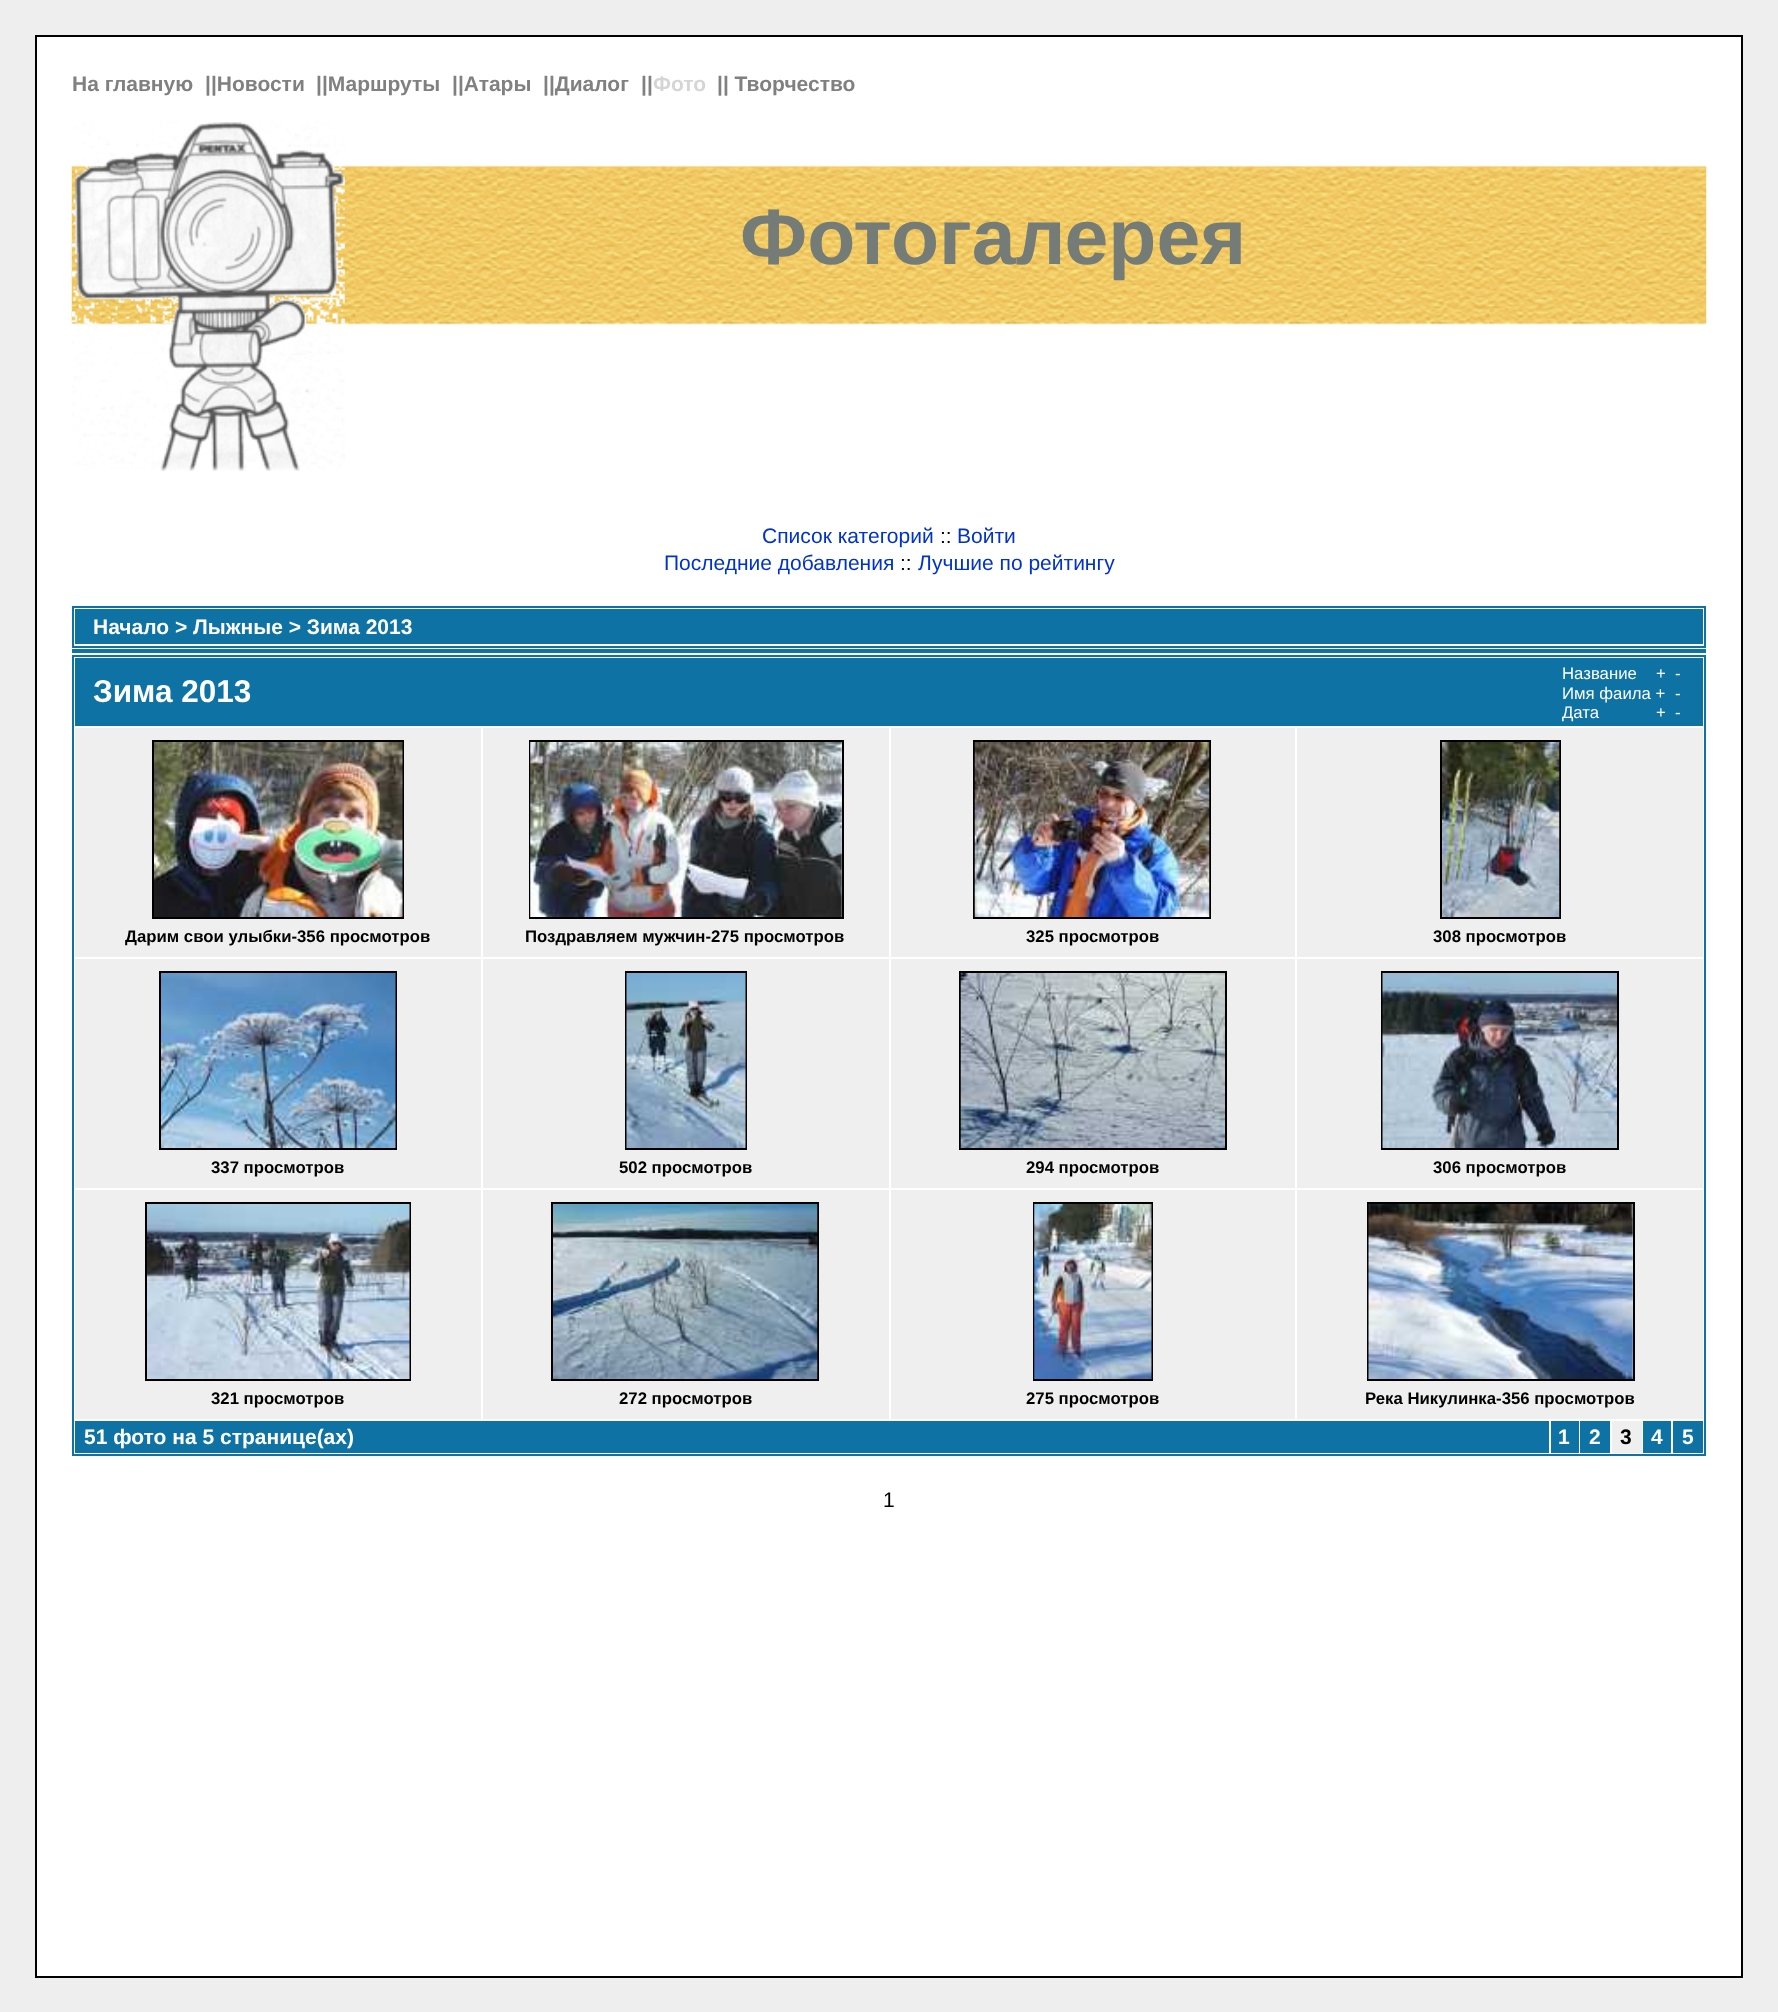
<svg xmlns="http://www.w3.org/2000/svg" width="1778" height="2012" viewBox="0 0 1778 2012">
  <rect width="100%" height="100%" fill="#eee"/>
  <path d="M36 36h1706v1941H36z" fill="#fff" stroke="#000" stroke-width="2"/>
  <image x="71" y="165" width="1636" height="160" href="img/1.png"/>
  <image x="71" y="121" width="274" height="350" href="img/2.png"/>
  <path d="M73 607h1632v40H73z" fill="none" stroke="#0e72a4" stroke-width="2"/>
  <path d="M75 609h1628v35H75z" fill="#0e72a4"/>
  <path d="M72 649h1634v4H72z" fill="#0e72a4"/>
  <path d="M73 656h1632v799H73z" fill="none" stroke="#0e72a4" stroke-width="2"/>
  <path d="M75 658h1628v68H75z" fill="#0e72a4"/>
  <path d="M75 728h406v229H75z" fill="#efefef"/>
  <path d="M153 741h250v177H153z" fill="none" stroke="#000" stroke-width="2"/>
  <image x="154" y="742" width="249" height="175" href="img/3.png"/>
  <path d="M483 728h406v229H483z" fill="#efefef"/>
  <path d="M530 741h313v177H530z" fill="none" stroke="#000" stroke-width="2"/>
  <image x="530" y="742" width="312" height="175" href="img/4.png"/>
  <path d="M891 728h404v229H891z" fill="#efefef"/>
  <path d="M974 741h236v177H974z" fill="none" stroke="#000" stroke-width="2"/>
  <image x="974" y="742" width="236" height="175" href="img/5.png"/>
  <path d="M1297 728h406v229H1297z" fill="#efefef"/>
  <path d="M1441 741h119v177H1441z" fill="none" stroke="#000" stroke-width="2"/>
  <image x="1442" y="742" width="118" height="175" href="img/6.png"/>
  <path d="M75 959h406v229H75z" fill="#efefef"/>
  <path d="M160 972h236v177H160z" fill="none" stroke="#000" stroke-width="2"/>
  <image x="161" y="973" width="235" height="175" href="img/7.png"/>
  <path d="M483 959h406v229H483z" fill="#efefef"/>
  <path d="M626 972h120v177H626z" fill="none" stroke="#000" stroke-width="2"/>
  <image x="626" y="973" width="120" height="175" href="img/8.png"/>
  <path d="M891 959h404v229H891z" fill="#efefef"/>
  <path d="M960 972h266v177H960z" fill="none" stroke="#000" stroke-width="2"/>
  <image x="960" y="973" width="265" height="175" href="img/9.png"/>
  <path d="M1297 959h406v229H1297z" fill="#efefef"/>
  <path d="M1382 972h236v177H1382z" fill="none" stroke="#000" stroke-width="2"/>
  <image x="1382" y="973" width="235" height="175" href="img/10.png"/>
  <path d="M75 1190h406v229H75z" fill="#efefef"/>
  <path d="M146 1203h264v177H146z" fill="none" stroke="#000" stroke-width="2"/>
  <image x="147" y="1204" width="263" height="175" href="img/11.png"/>
  <path d="M483 1190h406v229H483z" fill="#efefef"/>
  <path d="M552 1203h266v177H552z" fill="none" stroke="#000" stroke-width="2"/>
  <image x="553" y="1204" width="265" height="175" href="img/12.png"/>
  <path d="M891 1190h404v229H891z" fill="#efefef"/>
  <path d="M1034 1203h118v177H1034z" fill="none" stroke="#000" stroke-width="2"/>
  <image x="1034" y="1204" width="118" height="175" href="img/13.png"/>
  <path d="M1297 1190h406v229H1297z" fill="#efefef"/>
  <path d="M1368 1203h266v177H1368z" fill="none" stroke="#000" stroke-width="2"/>
  <image x="1368" y="1204" width="265" height="175" href="img/14.png"/>
  <path d="M75 1421h1474v32H75z" fill="#0e72a4"/>
  <path d="M1551 1421h28v32H1551z" fill="#0e72a4"/>
  <path d="M1580 1421h30v32H1580z" fill="#0e72a4"/>
  <path d="M1612 1421h30v32H1612z" fill="#efefef"/>
  <path d="M1643 1421h28v32H1643z" fill="#0e72a4"/>
  <path d="M1673 1421h30v32H1673z" fill="#0e72a4"/>
  <g font-family="Liberation Sans" font-size="21" font-weight="bold" fill="#808080">
    <text x="72" y="91">На главную</text>
    <text x="205" y="91">||Новости</text>
    <text x="316" y="91">||Маршруты</text>
    <text x="452" y="91">||Атары</text>
    <text x="543" y="91">||Диалог</text>
    <text x="641" y="91">||</text>
  </g>
  <text x="653" y="91" font-family="Liberation Sans" font-size="21" font-weight="bold" fill="#d5d5d5">Фото</text>
  <text x="717" y="91" font-family="Liberation Sans" font-size="21" font-weight="bold" fill="#808080">|| Творчество</text>
  <text x="740" y="264" font-family="Liberation Sans" font-size="78.75" font-weight="bold" fill="#757b77">Фотогалерея</text>
  <text x="762" y="543" font-family="Liberation Sans" font-size="21" fill="#03c">Список категорий</text>
  <text x="940" y="543" font-family="Liberation Sans" font-size="21" fill="#000">::</text>
  <g font-family="Liberation Sans" font-size="21" fill="#03c">
    <text x="957" y="543">Войти</text>
    <text x="664" y="570">Последние добавления</text>
  </g>
  <text x="900" y="570" font-family="Liberation Sans" font-size="21" fill="#000">::</text>
  <text x="918" y="570" font-family="Liberation Sans" font-size="21" fill="#03c">Лучшие по рейтингу</text>
  <text x="93" y="634" font-family="Liberation Sans" font-size="21" font-weight="bold" fill="#fff">Начало &gt; Лыжные &gt; Зима 2013</text>
  <text x="93" y="702" font-family="Liberation Sans" font-size="31.5" font-weight="bold" fill="#fff">Зима 2013</text>
  <g font-family="Liberation Sans" font-size="16.75" fill="#fff">
    <text x="1562" y="679">Название</text>
    <text x="1656" y="679">+</text>
    <text x="1675" y="679">-</text>
    <text x="1562" y="699">Имя фаила +</text>
    <text x="1675" y="699">-</text>
    <text x="1562" y="718">Дата</text>
    <text x="1656" y="718">+</text>
    <text x="1675" y="718">-</text>
  </g>
  <g font-family="Liberation Sans" font-size="16.75" font-weight="bold" fill="#000">
    <text x="125" y="942">Дарим свои улыбки-356 просмотров</text>
    <text x="525" y="942">Поздравляем мужчин-275 просмотров</text>
    <text x="1026" y="942">325 просмотров</text>
    <text x="1433" y="942">308 просмотров</text>
    <text x="211" y="1173">337 просмотров</text>
    <text x="619" y="1173">502 просмотров</text>
    <text x="1026" y="1173">294 просмотров</text>
    <text x="1433" y="1173">306 просмотров</text>
    <text x="211" y="1404">321 просмотров</text>
    <text x="619" y="1404">272 просмотров</text>
    <text x="1026" y="1404">275 просмотров</text>
    <text x="1365" y="1404">Река Никулинка-356 просмотров</text>
  </g>
  <g font-family="Liberation Sans" font-size="21" font-weight="bold" fill="#fff">
    <text x="84" y="1444">51 фото на 5 странице(ах)</text>
    <text x="1558" y="1444">1</text>
    <text x="1589" y="1444">2</text>
  </g>
  <text x="1620" y="1444" font-family="Liberation Sans" font-size="21" font-weight="bold" fill="#000">3</text>
  <g font-family="Liberation Sans" font-size="21" font-weight="bold" fill="#fff">
    <text x="1651" y="1444">4</text>
    <text x="1682" y="1444">5</text>
  </g>
  <text x="883" y="1507" font-family="Liberation Sans" font-size="21" fill="#000">1</text>
</svg>
